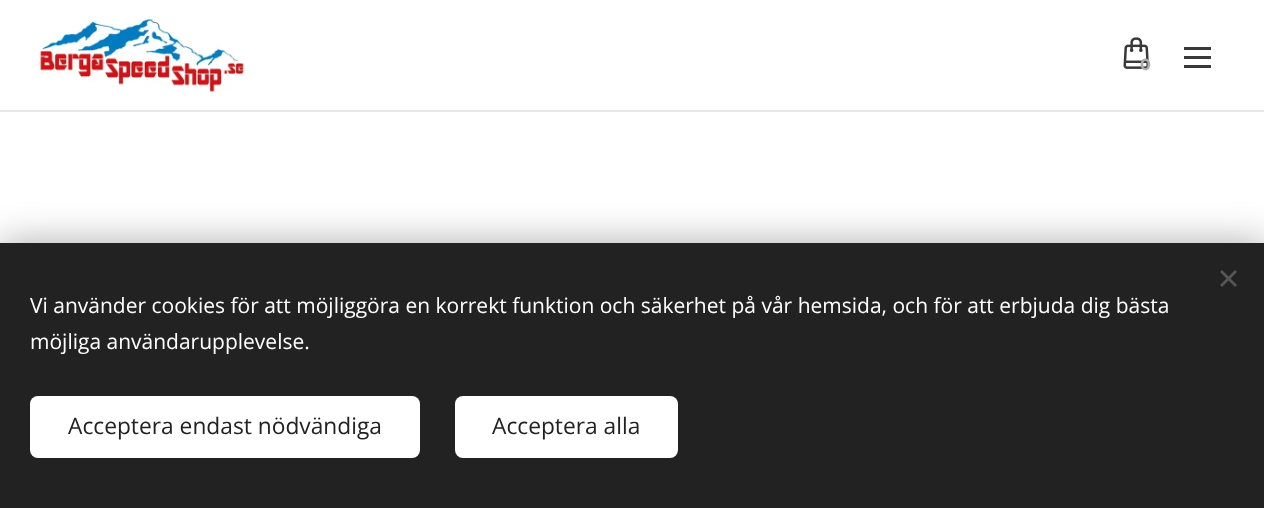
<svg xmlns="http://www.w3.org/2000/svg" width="1264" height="508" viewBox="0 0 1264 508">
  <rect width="100%" height="100%" fill="#fff"/>
  <image x="37" y="16" width="208" height="78" href="img/1.png"/>
  <image x="1123" y="37" width="26" height="32" href="img/2.png"/>
  <path d="M1184 56h27v3H1184z" fill="#393939"/>
  <path d="M1184 47h27v3H1184z" fill="#393939"/>
  <path d="M1184 65h27v3H1184z" fill="#393939"/>
  <path d="M0 110h1264v2H0z" fill="#e8e8e8"/>
  <path d="M0 243h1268v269H0z" fill="#00000054" filter="blur(19px)"/>
  <path d="M0 243h1264v265H0z" fill="#222"/>
  <path d="M1220 285L1235 270L1237 272L1222 287Z" fill="#555"/>
  <path d="M1222 270L1237 285L1235 287L1220 272Z" fill="#555"/>
  <rect x="30" y="396" width="390" height="62" rx="8" fill="#fff"/>
  <rect x="455" y="396" width="223" height="62" rx="8" fill="#fff"/>
  <text x="1140" y="70" font-family="Montserrat" font-size="16" font-weight="bold" fill="#ababab">0</text>
  <g font-family="Open Sans" font-size="21" fill="#fff">
    <text x="30" y="313">Vi använder cookies för att möjliggöra en korrekt funktion och säkerhet på vår hemsida, och för att erbjuda dig bästa</text>
    <text x="30" y="349">möjliga användarupplevelse.</text>
  </g>
  <g font-family="Open Sans" font-size="22.75" fill="#222">
    <text x="68" y="434">Acceptera endast nödvändiga</text>
    <text x="492" y="434">Acceptera alla</text>
  </g>
</svg>
